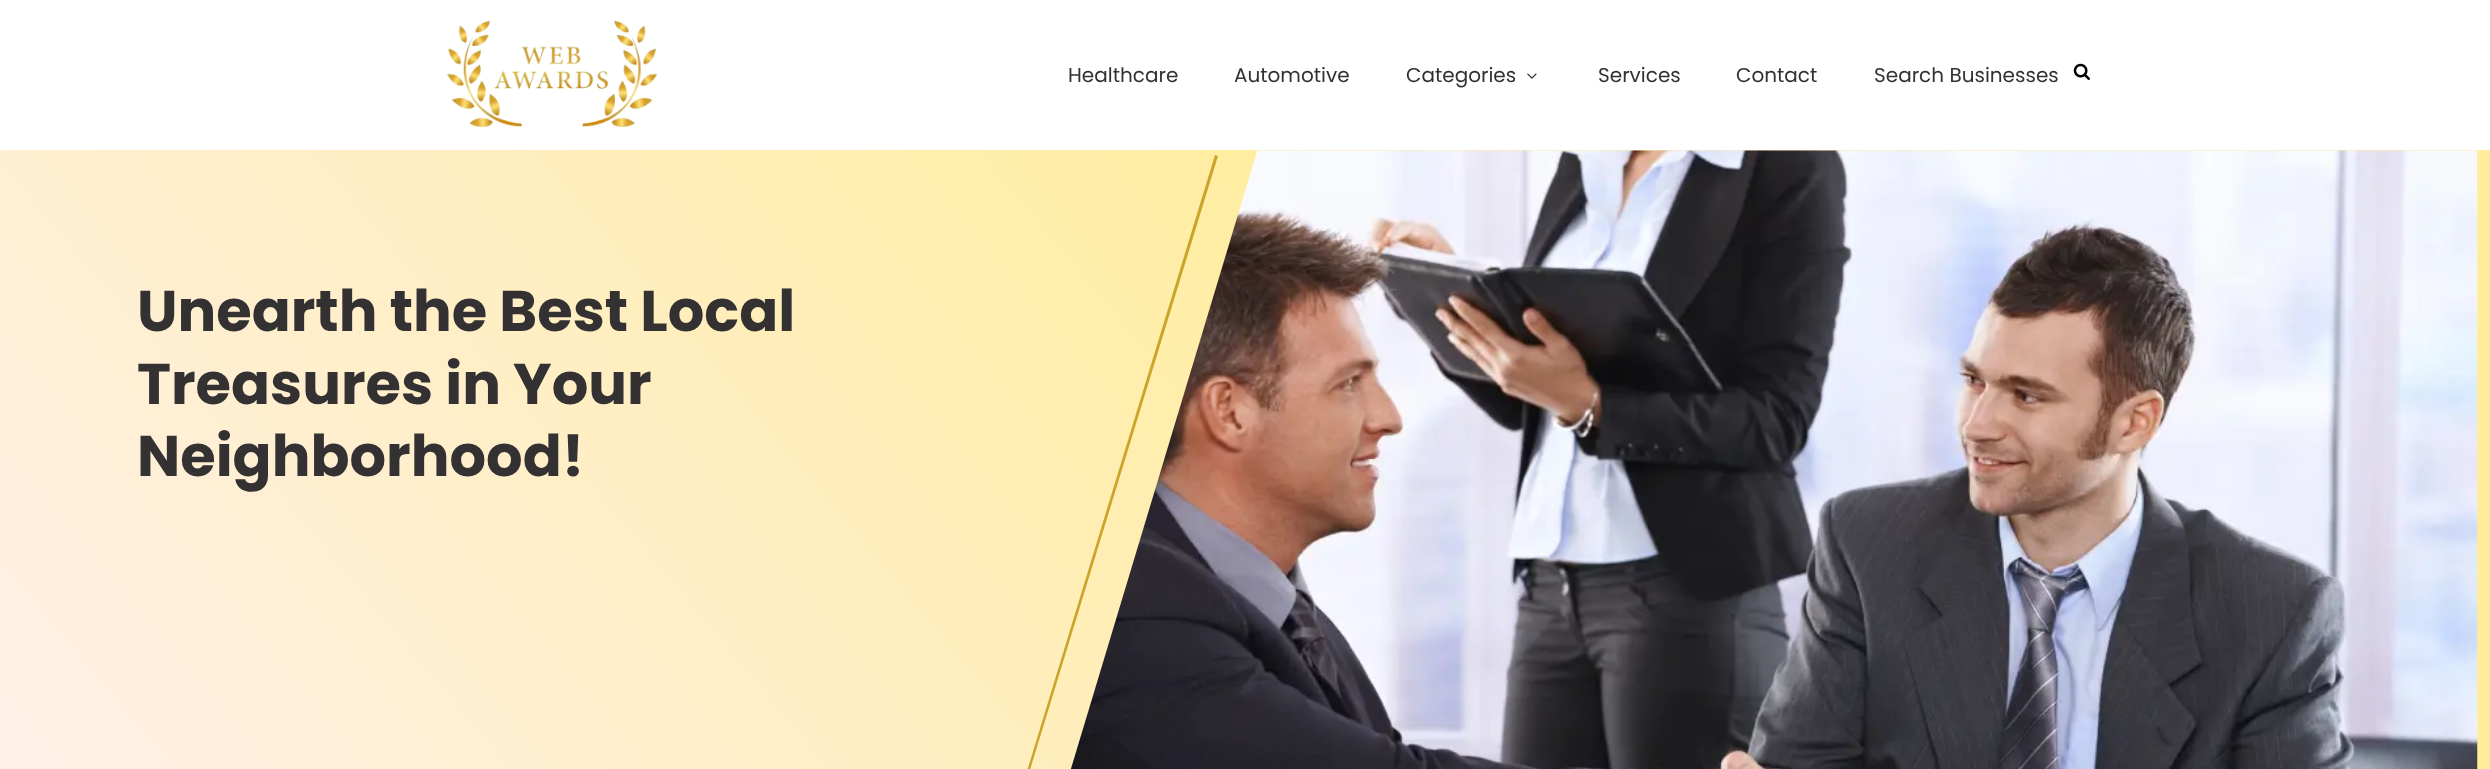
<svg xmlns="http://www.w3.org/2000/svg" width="2490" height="769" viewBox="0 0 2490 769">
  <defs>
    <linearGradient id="g1" gradientUnits="userSpaceOnUse" x1="303" y1="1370" x2="2187" y2="-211"><stop offset="0" stop-color="#fff0ef"/><stop offset="0.65" stop-color="#ffed9c"/></linearGradient>
  </defs>
  <rect width="100%" height="100%" fill="#fff"/>
  <image x="446" y="20" width="212" height="108" href="img/1.png"/>
  <image x="1527" y="73" width="10" height="6" href="img/2.png"/>
  <image x="2073" y="63" width="17" height="17" href="img/3.png"/>
  <path d="M0 150h2490v619H0z" fill="url(#g1)"/>
  <image x="1070" y="150" width="1408" height="619" href="img/4.png"/>
  <path d="M1215 155L1218 156L954 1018L952 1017Z" fill="#cba429"/>
  <g font-family="Poppins" font-size="20" fill="#333132">
    <text x="1068" y="82">Healthcare</text>
    <text x="1234" y="82">Automotive</text>
    <text x="1406" y="82">Categories</text>
    <text x="1598" y="82">Services</text>
    <text x="1736" y="82">Contact</text>
    <text x="1874" y="82">Search Businesses</text>
  </g>
  <g font-family="Poppins" font-size="57.5" font-weight="bold" fill="#333132">
    <text x="137" y="331">Unearth the Best Local</text>
    <text x="137" y="404">Treasures in Your</text>
    <text x="137" y="476">Neighborhood!</text>
  </g>
</svg>
